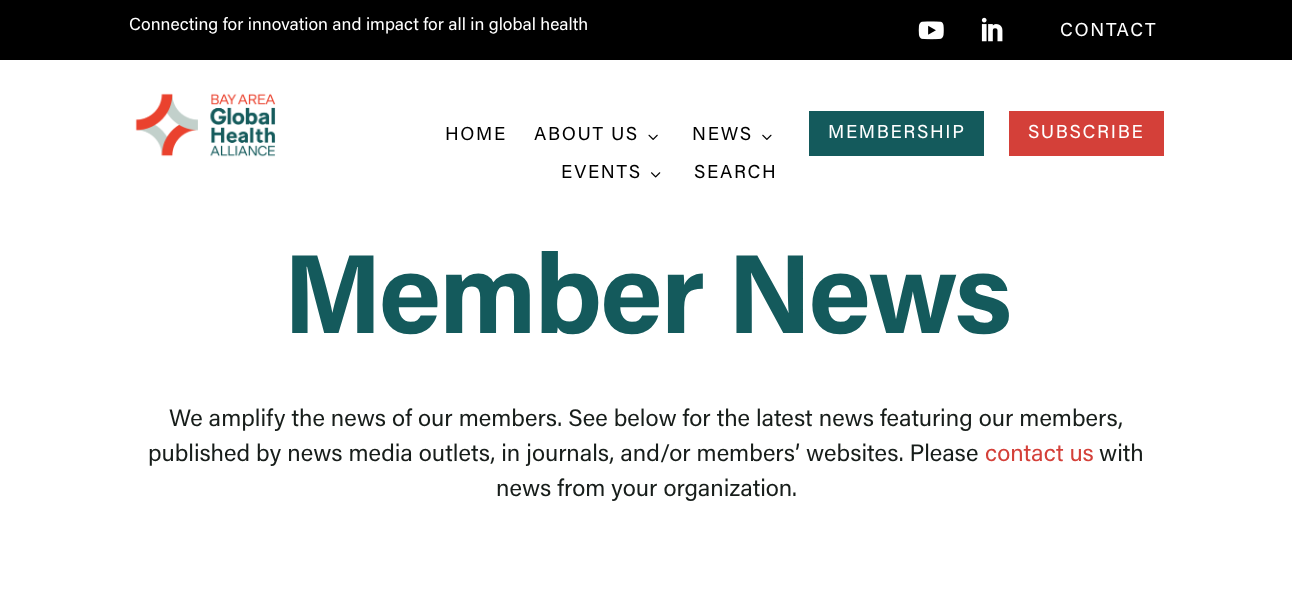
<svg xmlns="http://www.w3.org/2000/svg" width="1292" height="602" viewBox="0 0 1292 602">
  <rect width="100%" height="100%" fill="#fff"/>
  <path d="M0 0h1292v60H0z" fill="#000"/>
  <image x="918" y="21" width="26" height="19" href="img/1.png"/>
  <image x="981" y="17" width="22" height="25" href="img/2.png"/>
  <image x="135" y="93" width="141" height="64" href="img/3.png"/>
  <image x="648" y="134" width="10" height="6" href="img/4.png"/>
  <image x="762" y="134" width="10" height="6" href="img/5.png"/>
  <image x="651" y="172" width="10" height="6" href="img/6.png"/>
  <path d="M809 111h175v45H809z" fill="#145a5c"/>
  <path d="M1009 111h155v45H1009z" fill="#d44039"/>
  <text x="129" y="30" font-family="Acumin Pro" font-size="17.5" fill="#fff">Connecting for innovation and impact for all in global health</text>
  <text x="1060" y="36" font-family="Acumin Pro" font-size="18.75" letter-spacing="1.6" fill="#fff">CONTACT</text>
  <g font-family="Acumin Pro" font-size="18.75" letter-spacing="1.6" fill="#000">
    <text x="445" y="140">HOME</text>
    <text x="534" y="140">ABOUT US</text>
    <text x="692" y="140">NEWS</text>
    <text x="561" y="178">EVENTS</text>
    <text x="694" y="178">SEARCH</text>
  </g>
  <g font-family="Acumin Pro" font-size="18.75" letter-spacing="1.6" fill="#fff">
    <text x="828" y="138">MEMBERSHIP</text>
    <text x="1028" y="138">SUBSCRIBE</text>
  </g>
  <text x="283" y="333" font-family="Acumin Pro" font-size="112.5" font-weight="bold" letter-spacing="-2.5" fill="#145a5c">Member News</text>
  <g font-family="Acumin Pro" font-size="23.75" fill="#171d1a">
    <text x="169" y="426">We amplify the news of our members. See below for the latest news featuring our members,</text>
    <text x="148" y="461">published by news media outlets, in journals, and/or members’ websites. Please</text>
  </g>
  <text x="985" y="461" font-family="Acumin Pro" font-size="23.75" fill="#d44039">contact us</text>
  <g font-family="Acumin Pro" font-size="23.75" fill="#171d1a">
    <text x="1099" y="461">with</text>
    <text x="496" y="496">news from your organization.</text>
  </g>
</svg>
